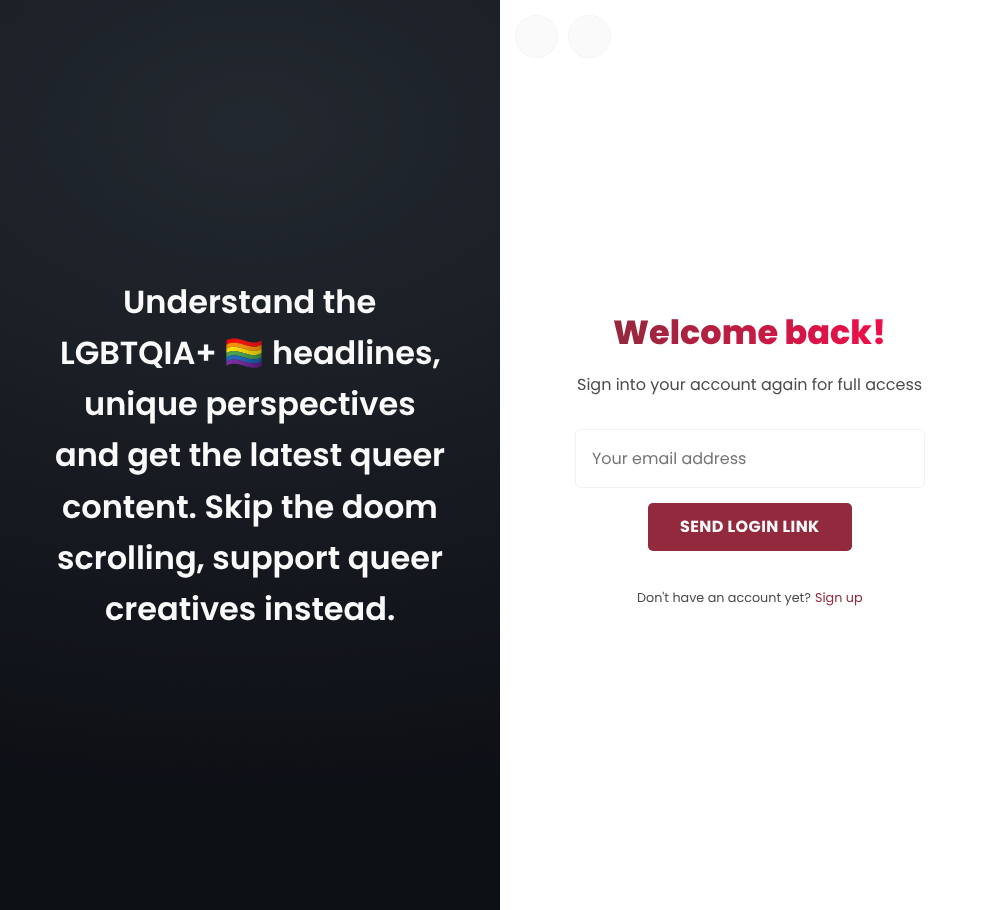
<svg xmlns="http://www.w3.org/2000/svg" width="1000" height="910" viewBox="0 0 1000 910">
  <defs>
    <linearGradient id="g1" gradientUnits="userSpaceOnUse" x1="613" y1="333" x2="887" y2="333"><stop offset="0" stop-color="#93293d"/><stop offset="1" stop-color="#f10e4a"/></linearGradient>
  </defs>
  <rect width="100%" height="100%" fill="#fff"/>
  <image x="0" y="0" width="500" height="910" href="img/1.png"/>
  <circle cx="536.5" cy="36.5" r="21" fill="none" stroke="#f2f2f2"/>
  <circle cx="536.5" cy="36.5" r="20.5" fill="#fafafa"/>
  <circle cx="589.5" cy="36.5" r="21" fill="none" stroke="#f2f2f2"/>
  <circle cx="589.5" cy="36.5" r="20.5" fill="#fafafa"/>
  <rect x="575.5" y="429.5" width="349" height="58" rx="5.5" fill="none" stroke="#eff1f3"/>
  <rect x="648" y="503" width="204" height="48" rx="5" fill="#93293d"/>
  <g font-family="Poppins" font-size="32" font-weight="600" fill="#fafafa">
    <text x="123" y="313">Understand the</text>
    <text x="60" y="364">LGBTQIA+</text>
  </g>
  <text x="224" y="364" font-family="Noto Color Emoji" font-size="32" font-weight="bold" fill="#fafafa">🏳️‍🌈</text>
  <g font-family="Poppins" font-size="32" font-weight="600" fill="#fafafa">
    <text x="272" y="364">headlines,</text>
    <text x="84" y="415">unique perspectives</text>
    <text x="55" y="466">and get the latest queer</text>
    <text x="62" y="518">content. Skip the doom</text>
    <text x="57" y="569">scrolling, support queer</text>
    <text x="105" y="620">creatives instead.</text>
  </g>
  <text x="613" y="344" font-family="Poppins" font-size="33.5" font-weight="800" fill="url(#g1)">Welcome back!</text>
  <text x="577" y="390" font-family="Poppins" font-size="16" fill="#4c4c4c">Sign into your account again for full access</text>
  <text x="592" y="464" font-family="Poppins" font-size="16" fill="#757575">Your email address</text>
  <text x="680" y="532" font-family="Poppins" font-size="16" font-weight="bold" letter-spacing="0.4" fill="#fafafa">SEND LOGIN LINK</text>
  <text x="637" y="602" font-family="Poppins" font-size="12.75" fill="#4c4c4c">Don't have an account yet?</text>
  <text x="815" y="602" font-family="Poppins" font-size="12.75" fill="#93293d">Sign up</text>
</svg>
